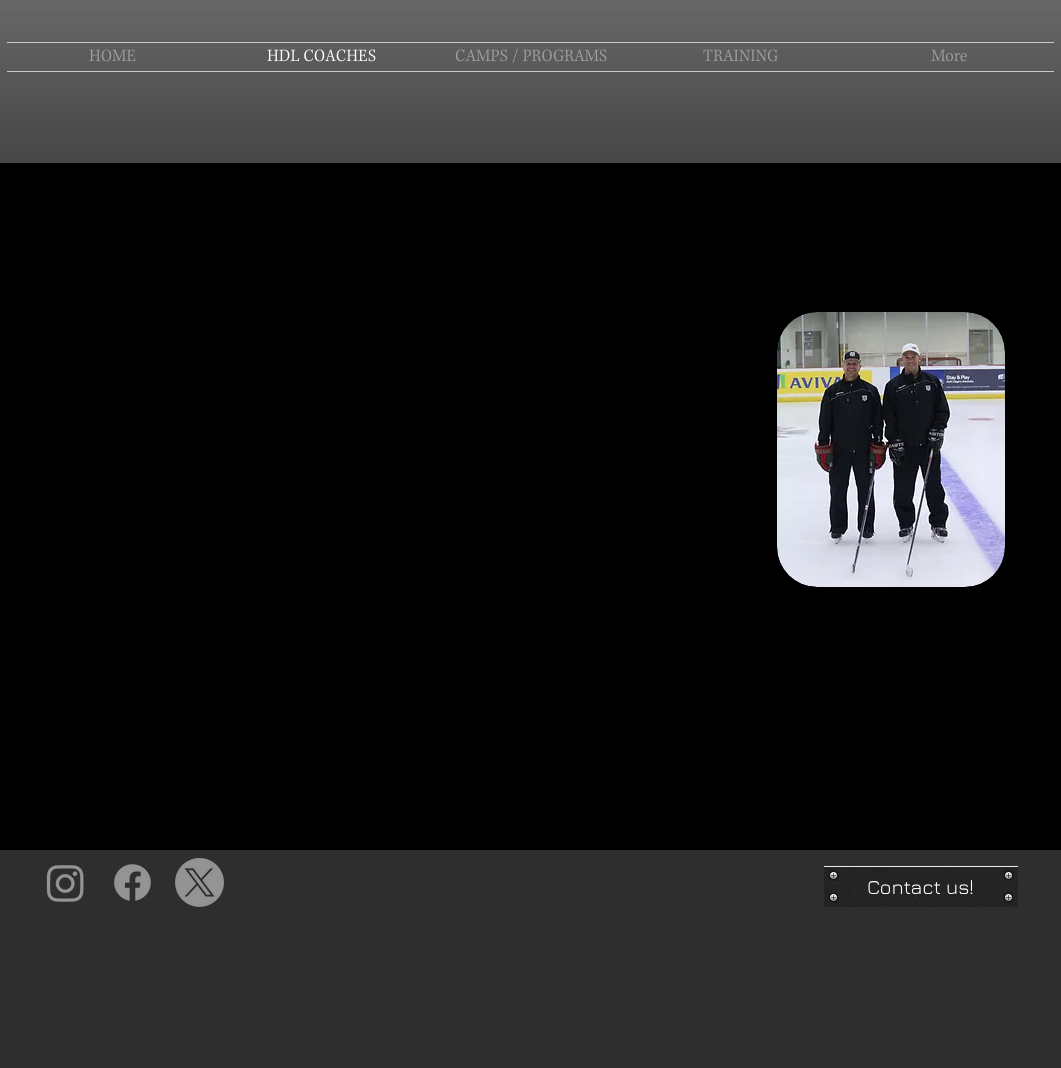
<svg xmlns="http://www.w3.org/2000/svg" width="1061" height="1068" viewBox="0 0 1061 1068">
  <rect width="100%" height="100%" fill="#000"/>
  <path d="M0 0h1061v163H0z" fill="#333"/>
  <image x="0" y="0" width="1061" height="163" href="img/1.png"/>
  <path d="M7 42h1047v1H7z" fill="#cacaca"/>
  <path d="M7 71h1047v1H7z" fill="#cacaca"/>
  <image x="89" y="49" width="47" height="13" href="img/2.png"/>
  <image x="267" y="49" width="109" height="13" href="img/3.png"/>
  <image x="455" y="48" width="152" height="15" href="img/4.png"/>
  <image x="703" y="49" width="75" height="13" href="img/5.png"/>
  <image x="931" y="49" width="36" height="13" href="img/6.png"/>
  <image x="777" y="312" width="228" height="275" href="img/7.png"/>
  <path d="M0 850h1061v218H0z" fill="#2f2e2e"/>
  <image x="46" y="865" width="38" height="37" href="img/8.png"/>
  <image x="114" y="864" width="37" height="37" href="img/9.png"/>
  <image x="175" y="858" width="49" height="49" href="img/10.png"/>
  <path d="M824 866h194v41H824z" fill="#232323"/>
  <image x="824" y="866" width="194" height="41" href="img/11.png"/>
  <path d="M824 866h194v1H824z" fill="#ffffffeb"/>
  <image x="828" y="870" width="11" height="11" href="img/12.png"/>
  <image x="1003" y="870" width="11" height="11" href="img/13.png"/>
  <image x="828" y="892" width="11" height="11" href="img/14.png"/>
  <image x="1003" y="892" width="11" height="11" href="img/15.png"/>
  <text x="867" y="894" font-family="Jura" font-size="20" fill="#fff">Contact us!</text>
</svg>
